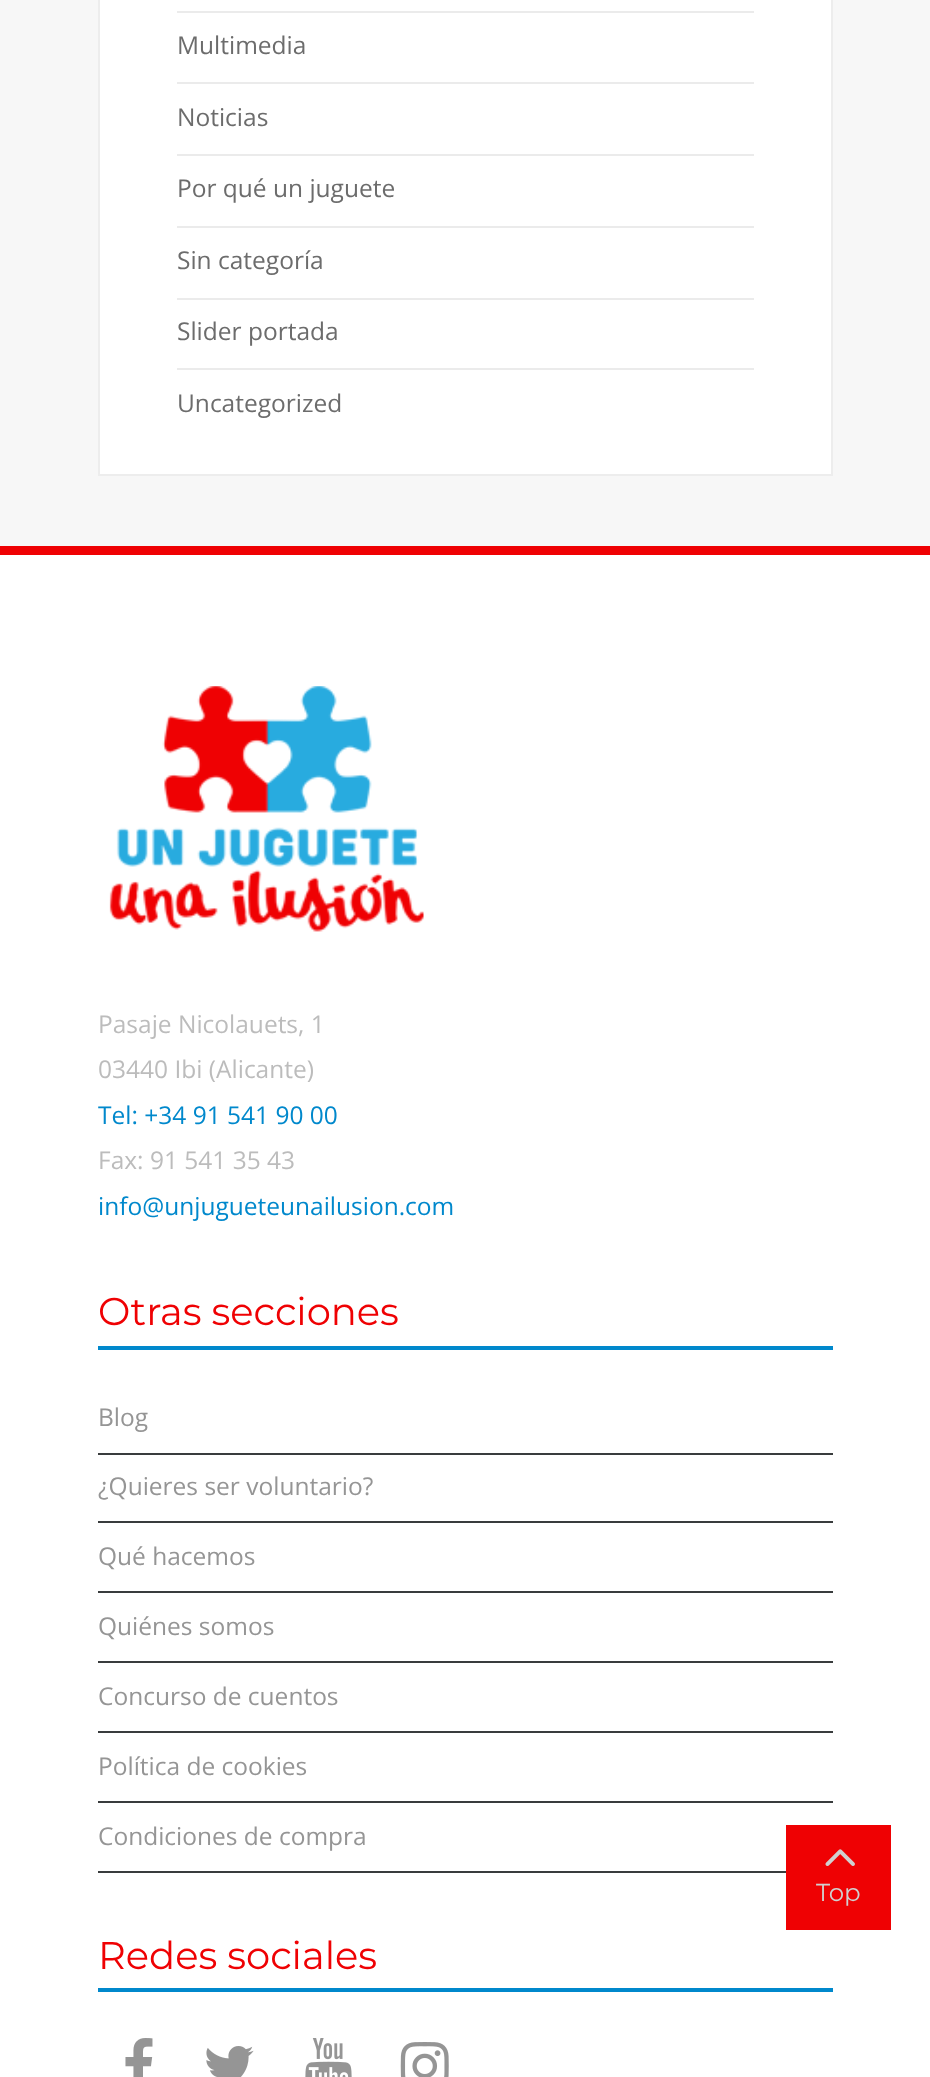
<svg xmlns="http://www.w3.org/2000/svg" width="930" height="2077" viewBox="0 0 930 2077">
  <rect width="100%" height="100%" fill="#f7f7f7"/>
  <path d="M99 -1h733v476H99z" fill="#fff" stroke="#ededed" stroke-width="2"/>
  <path d="M177 11h577v2H177z" fill="#ebebeb"/>
  <path d="M177 82h577v2H177z" fill="#ebebeb"/>
  <path d="M177 154h577v2H177z" fill="#ebebeb"/>
  <path d="M177 226h577v2H177z" fill="#ebebeb"/>
  <path d="M177 298h577v2H177z" fill="#ebebeb"/>
  <path d="M177 368h577v2H177z" fill="#ebebeb"/>
  <path d="M0 555h930v1522H0z" fill="#fff"/>
  <path d="M0 546h930v9H0z" fill="#ef0103"/>
  <image x="109" y="686" width="315" height="246" href="img/1.png"/>
  <path d="M98 1346h735v4H98z" fill="#08c"/>
  <path d="M98 1453h735v2H98z" fill="#393c3d"/>
  <path d="M98 1521h735v2H98z" fill="#393c3d"/>
  <path d="M98 1591h735v2H98z" fill="#393c3d"/>
  <path d="M98 1661h735v2H98z" fill="#393c3d"/>
  <path d="M98 1731h735v2H98z" fill="#393c3d"/>
  <path d="M98 1801h735v2H98z" fill="#393c3d"/>
  <path d="M98 1871h688v2H98z" fill="#393c3d"/>
  <path d="M98 1988h735v4H98z" fill="#08c"/>
  <image x="125" y="2038" width="28" height="39" href="img/2.png"/>
  <image x="206" y="2046" width="48" height="31" href="img/3.png"/>
  <image x="305" y="2038" width="47" height="39" href="img/4.png"/>
  <image x="400" y="2042" width="49" height="35" href="img/5.png"/>
  <path d="M786 1825h105v105H786z" fill="#ef0103"/>
  <image x="825" y="1849" width="30" height="17" href="img/6.png"/>
  <g font-family="Open Sans" font-size="24.5" fill="#6c6c6c">
    <text x="177" y="54">Multimedia</text>
    <text x="177" y="126">Noticias</text>
    <text x="177" y="197">Por qué un juguete</text>
    <text x="177" y="269">Sin categoría</text>
    <text x="177" y="340">Slider portada</text>
    <text x="177" y="412">Uncategorized</text>
  </g>
  <g font-family="Open Sans" font-size="24.5" fill="#bcbcbc">
    <text x="98" y="1033">Pasaje Nicolauets, 1</text>
    <text x="98" y="1078">03440 Ibi (Alicante)</text>
  </g>
  <text x="98" y="1124" font-family="Open Sans" font-size="24.5" fill="#08c">Tel: +34 91 541 90 00</text>
  <text x="98" y="1169" font-family="Open Sans" font-size="24.5" fill="#bcbcbc">Fax: 91 541 35 43</text>
  <text x="98" y="1215" font-family="Open Sans" font-size="24.5" fill="#08c">info@unjugueteunailusion.com</text>
  <text x="98" y="1325" font-family="Montserrat" font-size="38.5" fill="#ef0103">Otras secciones</text>
  <g font-family="Open Sans" font-size="24.5" fill="#959595">
    <text x="98" y="1426">Blog</text>
    <text x="98" y="1495">¿Quieres ser voluntario?</text>
    <text x="98" y="1565">Qué hacemos</text>
    <text x="98" y="1635">Quiénes somos</text>
    <text x="98" y="1705">Concurso de cuentos</text>
    <text x="98" y="1775">Política de cookies</text>
    <text x="98" y="1845">Condiciones de compra</text>
  </g>
  <text x="98" y="1969" font-family="Montserrat" font-size="38.5" fill="#ef0103">Redes sociales</text>
  <text x="816" y="1901" font-family="Montserrat" font-size="24.5" fill="#d0d0d0">Top</text>
</svg>
